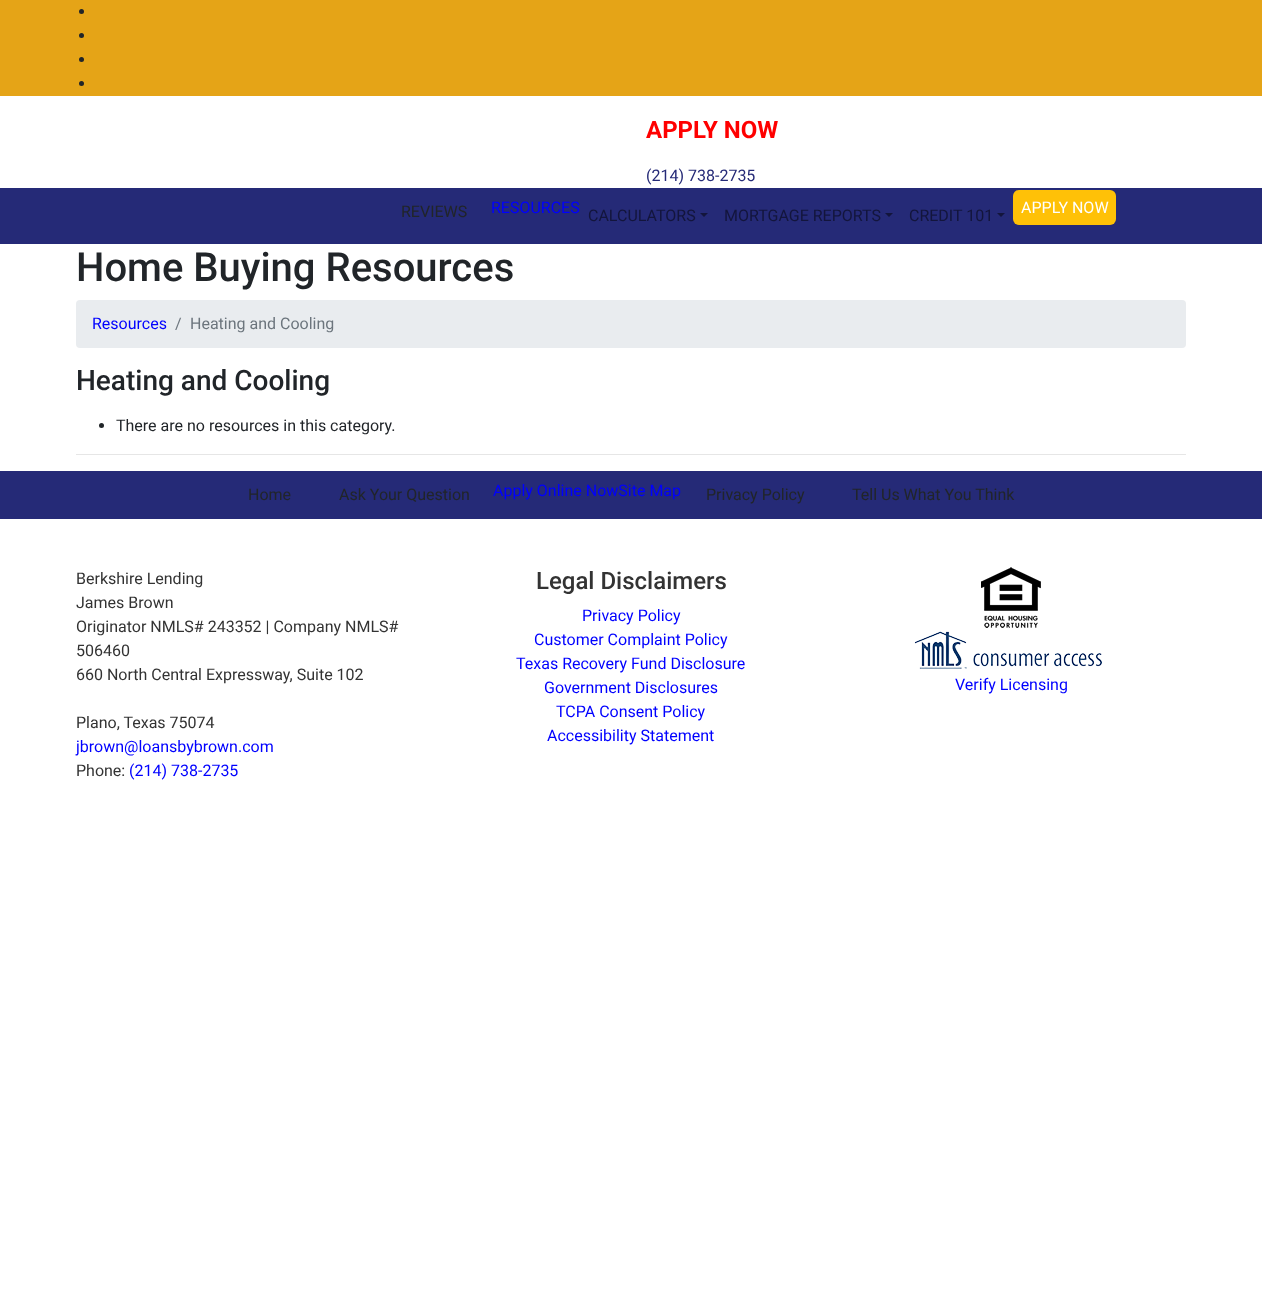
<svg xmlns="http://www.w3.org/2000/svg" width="1262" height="1298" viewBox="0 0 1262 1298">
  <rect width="100%" height="100%" fill="#fff"/>
  <path d="M0 0h1262v96H0z" fill="#e5a417"/>
  <circle cx="81.5" cy="11.5" r="2.5" fill="#212529"/>
  <circle cx="81.5" cy="35.5" r="2.5" fill="#212529"/>
  <circle cx="81.5" cy="59.5" r="2.5" fill="#212529"/>
  <circle cx="81.5" cy="83.5" r="2.5" fill="#212529"/>
  <path d="M0 188h1262v56H0z" fill="#252a77"/>
  <path d="M700 213H708L704 217Z" fill="#13153c"/>
  <path d="M885 213H893L889 217Z" fill="#13153c"/>
  <path d="M997 213H1005L1001 217Z" fill="#13153c"/>
  <rect x="1013" y="190" width="103" height="35" rx="6" fill="#ffc107"/>
  <rect x="76" y="300" width="1110" height="48" rx="4" fill="#e9ecef"/>
  <circle cx="101.5" cy="425.5" r="2.5" fill="#212529"/>
  <path d="M76 454h1110v1H76z" fill="#e6e6e6"/>
  <path d="M0 471h1262v48H0z" fill="#252a77"/>
  <image x="981" y="567" width="60" height="61" href="img/1.png"/>
  <image x="914" y="631" width="188" height="38" href="img/2.png"/>
  <text x="646" y="138" font-family="Roboto" font-size="24" font-weight="bold" fill="#f00">APPLY NOW</text>
  <text x="646" y="181" font-family="Roboto" font-size="16" fill="#252a77">(214) 738-2735</text>
  <text x="401" y="217" font-family="Roboto" font-size="16" fill="#212529">REVIEWS</text>
  <text x="491" y="213" font-family="Roboto" font-size="16" fill="#00f">RESOURCES</text>
  <g font-family="Roboto" font-size="16" fill="#13153c">
    <text x="588" y="221">CALCULATORS</text>
    <text x="724" y="221">MORTGAGE REPORTS</text>
    <text x="909" y="221">CREDIT 101</text>
  </g>
  <text x="1021" y="213" font-family="Roboto" font-size="16" fill="#fff">APPLY NOW</text>
  <text x="76" y="281" font-family="Roboto" font-size="40" font-weight="500" fill="#212529">Home Buying Resources</text>
  <text x="92" y="329" font-family="Roboto" font-size="16" fill="#00f">Resources</text>
  <g font-family="Roboto" font-size="16" fill="#6c757d">
    <text x="175" y="329">/</text>
    <text x="190" y="329">Heating and Cooling</text>
  </g>
  <text x="76" y="390" font-family="Roboto" font-size="28" font-weight="500" fill="#212529">Heating and Cooling</text>
  <g font-family="Roboto" font-size="16" fill="#212529">
    <text x="116" y="431">There are no resources in this category.</text>
    <text x="248" y="500">Home</text>
    <text x="339" y="500">Ask Your Question</text>
  </g>
  <text x="493" y="496" font-family="Roboto" font-size="16" fill="#00f">Apply Online NowSite Map</text>
  <g font-family="Roboto" font-size="16" fill="#212529">
    <text x="706" y="500">Privacy Policy</text>
    <text x="852" y="500">Tell Us What You Think</text>
  </g>
  <g font-family="Roboto" font-size="16" fill="#333">
    <text x="76" y="584">Berkshire Lending</text>
    <text x="76" y="608">James Brown</text>
    <text x="76" y="632">Originator NMLS# 243352 | Company NMLS#</text>
    <text x="76" y="656">506460</text>
    <text x="76" y="680">660 North Central Expressway, Suite 102</text>
    <text x="76" y="728">Plano, Texas 75074</text>
  </g>
  <text x="76" y="752" font-family="Roboto" font-size="16" fill="#00f">jbrown@loansbybrown.com</text>
  <text x="76" y="776" font-family="Roboto" font-size="16" fill="#333">Phone:</text>
  <text x="129" y="776" font-family="Roboto" font-size="16" fill="#00f">(214) 738-2735</text>
  <text x="536" y="589" font-family="Roboto" font-size="24" font-weight="500" fill="#333">Legal Disclaimers</text>
  <g font-family="Roboto" font-size="16" fill="#00f">
    <text x="582" y="621">Privacy Policy</text>
    <text x="534" y="645">Customer Complaint Policy</text>
    <text x="516" y="669">Texas Recovery Fund Disclosure</text>
    <text x="544" y="693">Government Disclosures</text>
    <text x="556" y="717">TCPA Consent Policy</text>
    <text x="547" y="741">Accessibility Statement</text>
    <text x="955" y="690">Verify Licensing</text>
  </g>
</svg>
